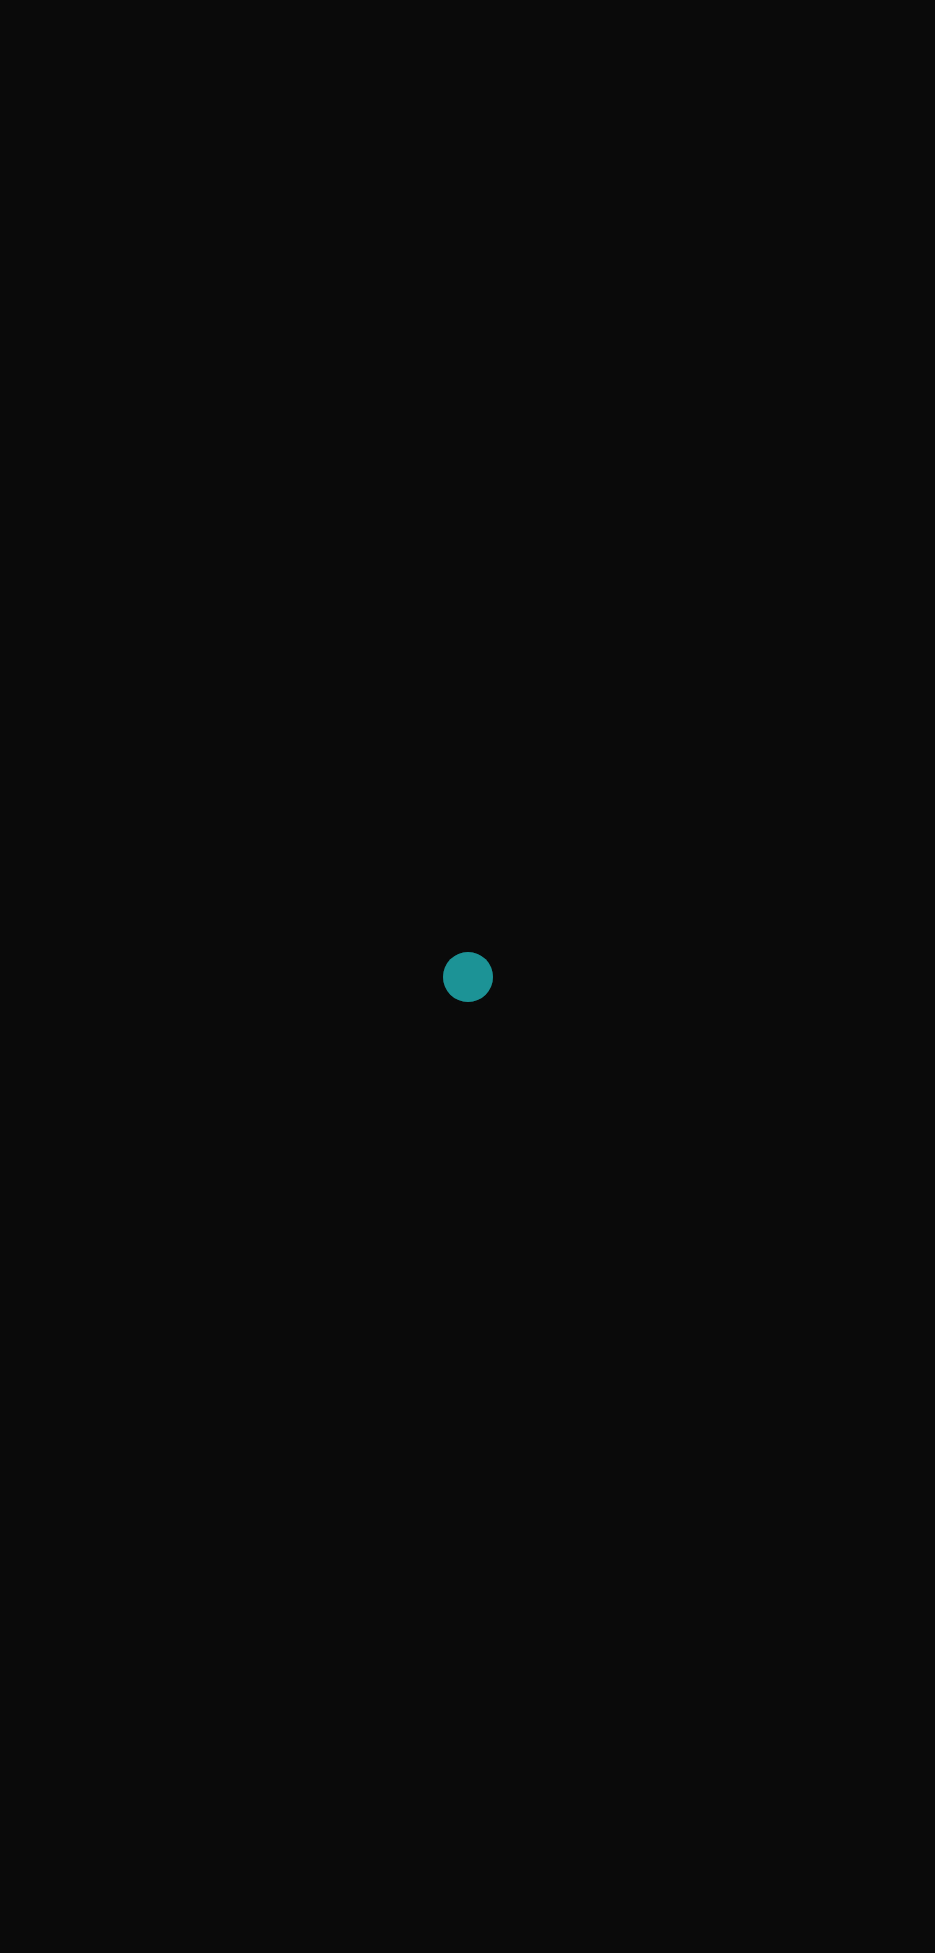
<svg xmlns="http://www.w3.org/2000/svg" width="935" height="1953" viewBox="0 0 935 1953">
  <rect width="100%" height="100%" fill="#0a0a0a"/>
  <circle cx="468" cy="977" r="25" fill="#176c6e"/>
  <circle cx="468" cy="977" r="25" fill="#20aeb199"/>
</svg>
